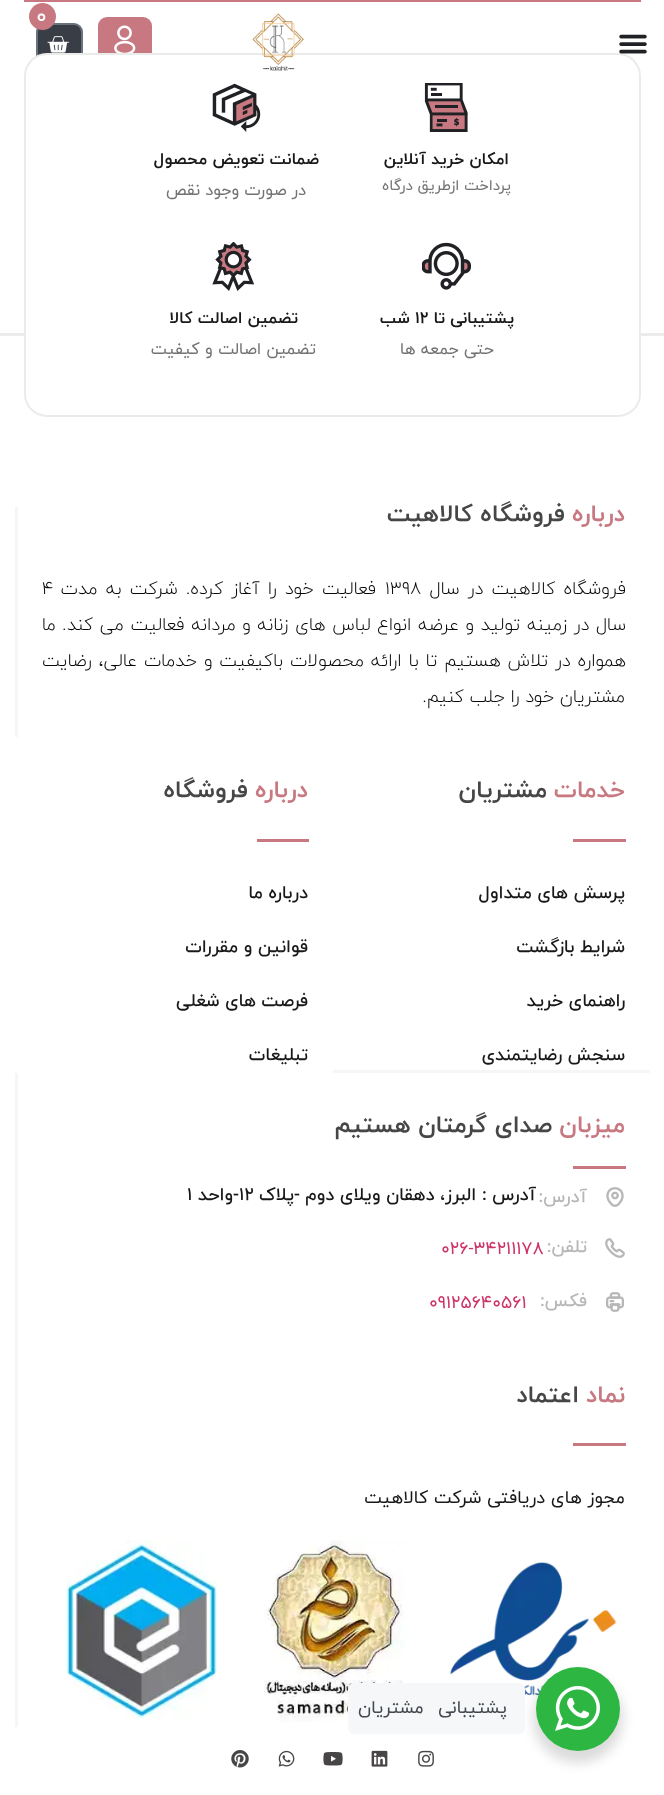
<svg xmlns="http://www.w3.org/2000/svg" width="664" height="1795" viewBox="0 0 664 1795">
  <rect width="100%" height="100%" fill="#fff"/>
  <path d="M24 0h617v2H24z" fill="#c87880"/>
  <rect x="98" y="17" width="54" height="45" rx="9" fill="#c87880"/>
  <rect x="37" y="24" width="45" height="40" rx="8" fill="#393e46" stroke="#69727d" stroke-width="2"/>
  <path d="M0 333h664v3H0z" fill="#ebebeb"/>
  <rect x="25" y="54" width="615" height="362" rx="22" fill="#fff" stroke="#ebebeb" stroke-width="2"/>
  <image x="619" y="34" width="28" height="20" href="img/1.png"/>
  <image x="252" y="13" width="52" height="58" href="img/2.png"/>
  <image x="114" y="25" width="22" height="28" href="img/3.png"/>
  <circle cx="42.5" cy="16.5" r="13.5" fill="#c87880"/>
  <image x="47" y="36" width="22" height="17" href="img/4.png"/>
  <image x="424" y="83" width="44" height="49" href="img/5.png"/>
  <image x="212" y="83" width="49" height="49" href="img/6.png"/>
  <image x="422" y="242" width="49" height="48" href="img/7.png"/>
  <image x="212" y="242" width="43" height="49" href="img/8.png"/>
  <path d="M15 507h3v230H15z" fill="#f6f6f6"/>
  <path d="M333 1070h317v3H333z" fill="#f6f6f6"/>
  <path d="M573 839h53v3H573z" fill="#c87880"/>
  <path d="M257 839h52v3H257z" fill="#c87880"/>
  <path d="M15 1073h3v654H15z" fill="#f6f6f6"/>
  <path d="M573 1166h53v3H573z" fill="#c87880"/>
  <image x="606" y="1187" width="18" height="20" href="img/9.png"/>
  <image x="605" y="1238" width="20" height="20" href="img/10.png"/>
  <image x="606" y="1292" width="18" height="20" href="img/11.png"/>
  <path d="M573 1443h53v3H573z" fill="#c87880"/>
  <image x="450" y="1562" width="167" height="134" href="img/12.png"/>
  <image x="264" y="1540" width="145" height="182" href="img/13.png"/>
  <image x="66" y="1540" width="151" height="179" href="img/14.png"/>
  <image x="418" y="1750" width="16" height="17" href="img/15.png"/>
  <image x="371" y="1750" width="17" height="17" href="img/16.png"/>
  <image x="323" y="1752" width="20" height="14" href="img/17.png"/>
  <image x="278" y="1750" width="17" height="17" href="img/18.png"/>
  <image x="231" y="1750" width="18" height="18" href="img/19.png"/>
  <rect x="533" y="1673" width="90" height="90" rx="45" fill="#00000024" filter="blur(6px)"/>
  <circle cx="578" cy="1709" r="42" fill="#2db742"/>
  <image x="555" y="1686" width="45" height="45" href="img/20.png"/>
  <rect x="348" y="1683" width="177" height="51" rx="6" fill="#f5f7f9"/>
  <text x="36" y="23" font-family="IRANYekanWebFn" font-size="22" fill="#fff">0</text>
  <text x="509" y="164" font-family="IRANYekanWebFn" font-size="16.5" font-weight="bold" direction="rtl" fill="#181818">امکان خرید آنلاین</text>
  <text x="511" y="190" font-family="IRANYekanWebFn" font-size="15" direction="rtl" fill="#737373">پرداخت ازطریق درگاه</text>
  <g font-family="IRANYekanWebFn" font-size="16.5" font-weight="bold" direction="rtl" fill="#181818">
    <text x="319" y="164">ضمانت تعویض</text>
    <text x="207" y="164">محصول</text>
  </g>
  <text x="306" y="195" font-family="IRANYekanWebFn" font-size="16.5" direction="rtl" fill="#737373">در صورت وجود نقص</text>
  <text x="514" y="323" font-family="IRANYekanWebFn" font-size="16.5" font-weight="bold" direction="rtl" fill="#181818">پشتیبانی تا</text>
  <text x="415" y="323" font-family="IRANYekanWebFn" font-size="16.5" font-weight="bold" fill="#181818">۱۲</text>
  <text x="410" y="323" font-family="IRANYekanWebFn" font-size="16.5" font-weight="bold" direction="rtl" fill="#181818">شب</text>
  <text x="494" y="354" font-family="IRANYekanWebFn" font-size="16.5" direction="rtl" fill="#737373">حتی جمعه ها</text>
  <text x="298" y="323" font-family="IRANYekanWebFn" font-size="16.5" font-weight="bold" direction="rtl" fill="#181818">تضمین اصالت کالا</text>
  <text x="316" y="354" font-family="IRANYekanWebFn" font-size="16.5" direction="rtl" fill="#737373">تضمین اصالت و کیفیت</text>
  <text x="625" y="521" font-family="IRANYekanWebFn" font-size="24" font-weight="bold" direction="rtl" fill="#c87880">درباره</text>
  <text x="565" y="521" font-family="IRANYekanWebFn" font-size="24" font-weight="bold" direction="rtl" fill="#464646">فروشگاه کالاهیت</text>
  <text x="626" y="594" word-spacing="2.5" font-family="IRANYekanWebFn" font-size="18" font-weight="300" direction="rtl" fill="#070707">فروشگاه کالاهیت در سال</text>
  <text x="385" y="594" font-family="IRANYekanWebFn" font-size="18" font-weight="300" fill="#070707">1398</text>
  <text x="376" y="594" word-spacing="2.5" font-family="IRANYekanWebFn" font-size="18" font-weight="300" direction="rtl" fill="#070707">فعالیت خود را آغاز کرده. شرکت به مدت</text>
  <text x="42" y="594" font-family="IRANYekanWebFn" font-size="18" font-weight="300" fill="#070707">4</text>
  <g font-family="IRANYekanWebFn" font-size="18" font-weight="300" direction="rtl" fill="#070707">
    <text x="626" y="630" word-spacing="1">سال در زمینه تولید و عرضه انواع لباس های زنانه و مردانه فعالیت می کند. ما</text>
    <text x="626" y="666" word-spacing="1.25">همواره در تلاش هستیم تا با ارائه محصولات باکیفیت و خدمات عالی، رضایت</text>
    <text x="625" y="702">مشتریان خود را جلب کنیم.</text>
  </g>
  <text x="625" y="797" font-family="IRANYekanWebFn" font-size="24" font-weight="bold" direction="rtl" fill="#c87880">خدمات</text>
  <text x="547" y="797" font-family="IRANYekanWebFn" font-size="24" font-weight="bold" direction="rtl" fill="#464646">مشتریان</text>
  <g font-family="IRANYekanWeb" font-size="18" font-weight="500" direction="rtl" fill="#181818">
    <text x="625" y="898">پرسش های متداول</text>
    <text x="625" y="952">شرایط بازگشت</text>
    <text x="625" y="1006">راهنمای خرید</text>
    <text x="625" y="1060">سنجش رضایتمندی</text>
  </g>
  <text x="308" y="797" font-family="IRANYekanWebFn" font-size="24" font-weight="bold" direction="rtl" fill="#c87880">درباره</text>
  <text x="248" y="797" font-family="IRANYekanWebFn" font-size="24" font-weight="bold" direction="rtl" fill="#464646">فروشگاه</text>
  <g font-family="IRANYekanWebFn" font-size="18" font-weight="500" direction="rtl" fill="#181818">
    <text x="308" y="898">درباره ما</text>
    <text x="308" y="952">قوانین و مقررات</text>
    <text x="308" y="1006">فرصت های شغلی</text>
    <text x="308" y="1060">تبلیغات</text>
  </g>
  <text x="625" y="1132" font-family="IRANYekanWebFn" font-size="24" font-weight="bold" direction="rtl" fill="#c87880">میزبان</text>
  <text x="552" y="1132" font-family="IRANYekanWebFn" font-size="24" font-weight="bold" direction="rtl" fill="#464646">صدای گرمتان هستیم</text>
  <text x="587" y="1202" font-family="IRANYekanWebFn" font-size="18" font-weight="500" direction="rtl" fill="#b7b7b7">آدرس:</text>
  <text x="536" y="1200" font-family="IRANYekanWebFn" font-size="18" font-weight="500" direction="rtl" fill="#181818">آدرس : البرز، دهقان ویلای دوم -پلاک</text>
  <text x="239" y="1200" font-family="IRANYekanWebFn" font-size="18" font-weight="500" fill="#181818">12</text>
  <text x="239" y="1200" font-family="IRANYekanWebFn" font-size="18" font-weight="500" direction="rtl" fill="#181818">-واحد</text>
  <text x="187" y="1200" font-family="IRANYekanWebFn" font-size="18" font-weight="500" fill="#181818">1</text>
  <text x="587" y="1252" font-family="IRANYekanWebFn" font-size="18" font-weight="500" direction="rtl" fill="#b7b7b7">تلفن:</text>
  <text x="441" y="1254" font-family="IRANYekanWebFn" font-size="18" fill="#c36">026-34211178</text>
  <text x="587" y="1306" font-family="IRANYekanWebFn" font-size="18" font-weight="500" direction="rtl" fill="#b7b7b7">فکس:</text>
  <text x="429" y="1308" font-family="IRANYekanWebFn" font-size="18" fill="#c36">09125640561</text>
  <text x="625" y="1402" font-family="IRANYekanWebFn" font-size="24" font-weight="bold" direction="rtl" fill="#c87880">نماد</text>
  <text x="579" y="1402" font-family="IRANYekanWebFn" font-size="24" font-weight="bold" direction="rtl" fill="#464646">اعتماد</text>
  <text x="625" y="1503" font-family="IRANYekanWebFn" font-size="18" direction="rtl" fill="#181818">مجوز های دریافتی شرکت کالاهیت</text>
  <text x="507" y="1713" word-spacing="9" font-family="IRANYekanWebFn" font-size="18" letter-spacing="-0.5" direction="rtl" fill="#43474e">پشتیبانی مشتریان</text>
</svg>
